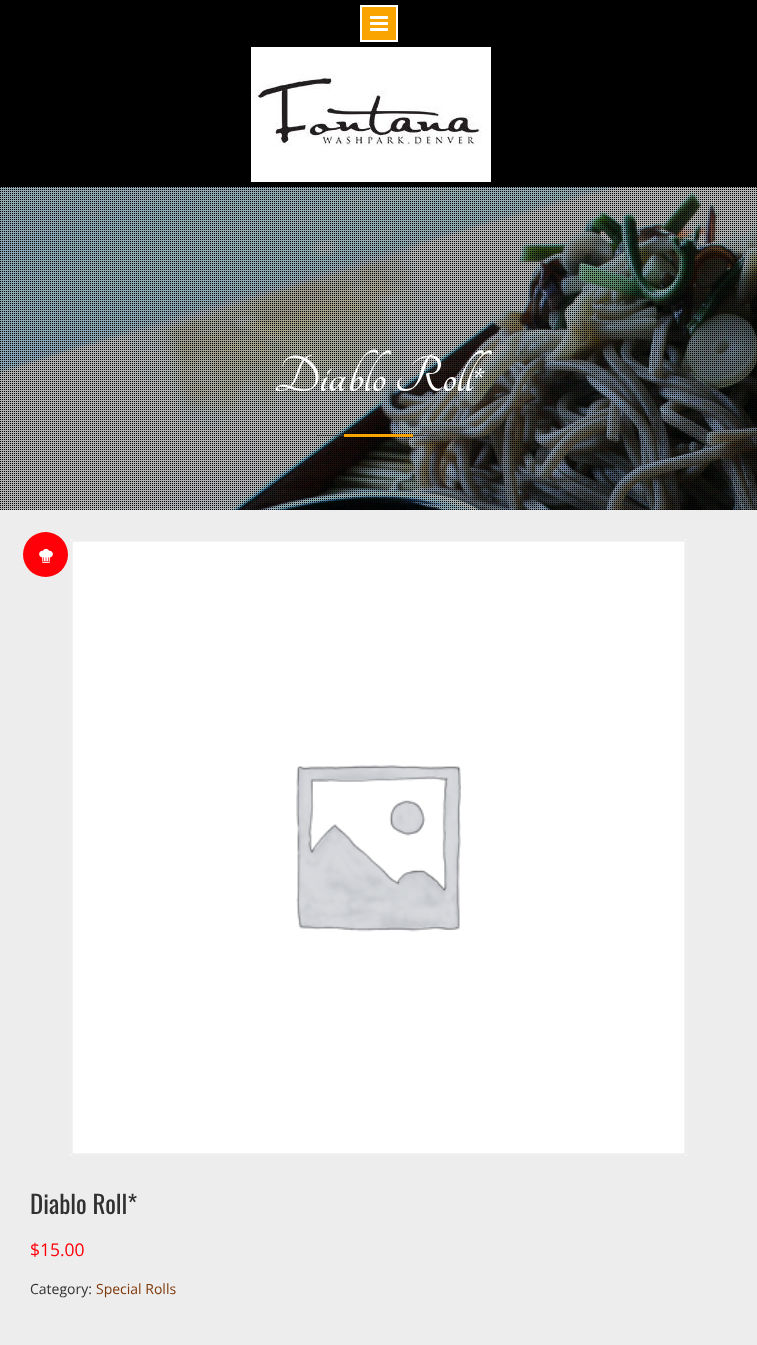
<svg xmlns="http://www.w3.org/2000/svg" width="757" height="1345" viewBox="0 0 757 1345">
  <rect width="100%" height="100%" fill="#ededed"/>
  <path d="M0 0h757v187H0z" fill="#000"/>
  <image x="251" y="47" width="240" height="135" href="img/1.png"/>
  <path d="M361 6h36v35H361z" fill="#f9a400" stroke="#fffffe" stroke-width="2"/>
  <image x="370" y="16" width="18" height="15" href="img/2.png"/>
  <image x="0" y="187" width="757" height="323" href="img/3.png"/>
  <image x="0" y="187" width="757" height="323" href="img/4.png"/>
  <path d="M316 435h125v1H316z" fill="#313131"/>
  <path d="M344 434h69v3H344z" fill="#f9a400"/>
  <circle cx="45.5" cy="554.5" r="22.5" fill="#ff0009"/>
  <image x="39" y="548" width="14" height="15" href="img/5.png"/>
  <image x="70" y="539" width="617" height="617" href="img/6.png"/>
  <text x="274" y="391" font-family="Tangerine" font-size="55" font-weight="bold" fill="#fff">Diablo Roll*</text>
  <text x="30" y="1214" font-family="Oswald" font-size="25" fill="#313131">Diablo Roll*</text>
  <text x="30" y="1256" font-family="Open Sans" font-size="17.5" fill="#ff0009">$15.00</text>
  <text x="30" y="1294" font-family="Open Sans" font-size="14" fill="#313131">Category:</text>
  <text x="96" y="1294" font-family="Open Sans" font-size="14" fill="#7f390a">Special Rolls</text>
</svg>
